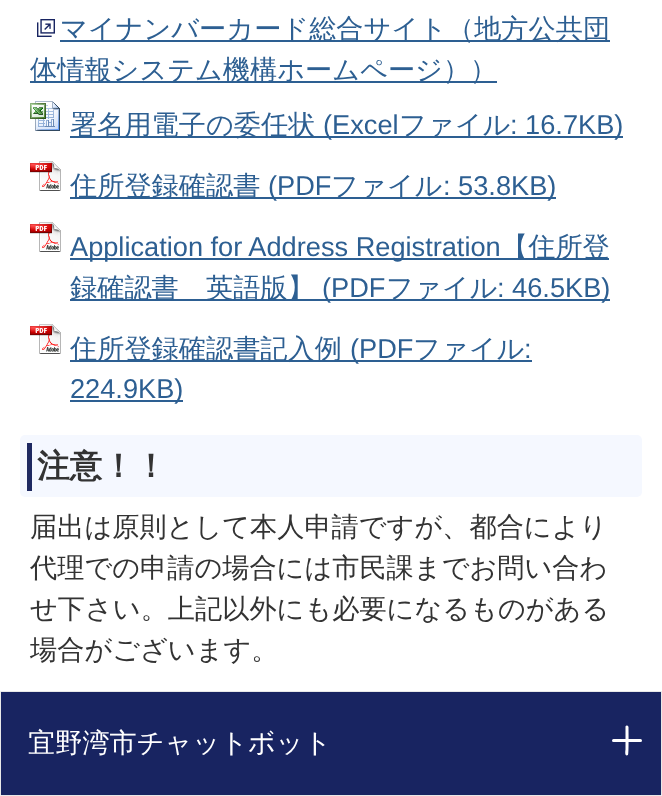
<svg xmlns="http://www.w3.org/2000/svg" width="662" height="796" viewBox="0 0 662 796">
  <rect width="100%" height="100%" fill="#fff"/>
  <image x="37" y="19" width="18" height="18" href="img/1.png"/>
  <path d="M60 40h550v2H60z" fill="#2d5f92"/>
  <path d="M30 81h467v2H30z" fill="#2d5f92"/>
  <image x="30" y="101" width="30" height="30" href="img/2.png"/>
  <path d="M70 136h553v2H70z" fill="#2d5f92"/>
  <image x="30" y="161" width="31" height="30" href="img/3.png"/>
  <path d="M70 197h486v2H70z" fill="#2d5f92"/>
  <image x="30" y="222" width="31" height="30" href="img/3.png"/>
  <path d="M70 258h539v2H70z" fill="#2d5f92"/>
  <path d="M70 299h540v2H70z" fill="#2d5f92"/>
  <image x="30" y="324" width="31" height="30" href="img/3.png"/>
  <path d="M70 360h462v2H70z" fill="#2d5f92"/>
  <path d="M70 400h113v2H70z" fill="#2d5f92"/>
  <rect x="20" y="435" width="622" height="62" rx="5" fill="#f5f8ff"/>
  <path d="M27 443h5v48H27z" fill="#1e2961"/>
  <path d="M0.5 691.5h661v104H0.5z" fill="none" stroke="#e8e8e8"/>
  <path d="M1 692h660v103H1z" fill="#182461"/>
  <rect x="612" y="739" width="30" height="3" rx="1.5" fill="#fff"/>
  <path d="M628.5 727C628.5 730 629 754 628 755L626.5 755.5C624.5 755 625.5 750 625.5 749.5V726.5C626 725.5 627.5 725 628 726Z" fill="#fff"/>
  <g font-family="WenQuanYi Zen Hei" font-size="27.2" font-weight="500" fill="#2d5f92">
    <text x="60" y="38">マイナンバーカード総合サイト（地方公共団</text>
    <text x="30" y="79">体情報システム機構ホームページ））</text>
    <text x="70" y="134">署名用電子の委任状</text>
  </g>
  <text x="323" y="134" font-family="Liberation Sans" font-size="27.2" fill="#2d5f92">(Excel</text>
  <text x="399" y="134" font-family="WenQuanYi Zen Hei" font-size="27.2" font-weight="500" fill="#2d5f92">ファイル</text>
  <text x="510" y="134" font-family="Liberation Sans" font-size="27.2" fill="#2d5f92">: 16.7KB)</text>
  <text x="70" y="195" font-family="WenQuanYi Zen Hei" font-size="27.2" font-weight="500" fill="#2d5f92">住所登録確認書</text>
  <text x="268" y="195" font-family="Liberation Sans" font-size="27.2" fill="#2d5f92">(PDF</text>
  <text x="331" y="195" font-family="WenQuanYi Zen Hei" font-size="27.2" font-weight="500" fill="#2d5f92">ファイル</text>
  <g font-family="Liberation Sans" font-size="27.2" fill="#2d5f92">
    <text x="443" y="195">: 53.8KB)</text>
    <text x="70" y="256">Application for Address Registration</text>
  </g>
  <g font-family="WenQuanYi Zen Hei" font-size="27.2" font-weight="500" fill="#2d5f92">
    <text x="501" y="256">【住所登</text>
    <text x="70" y="297">録確認書　英語版】</text>
  </g>
  <text x="322" y="297" font-family="Liberation Sans" font-size="27.2" fill="#2d5f92">(PDF</text>
  <text x="386" y="297" font-family="WenQuanYi Zen Hei" font-size="27.2" font-weight="500" fill="#2d5f92">ファイル</text>
  <text x="497" y="297" font-family="Liberation Sans" font-size="27.2" fill="#2d5f92">: 46.5KB)</text>
  <text x="70" y="358" font-family="WenQuanYi Zen Hei" font-size="27.2" font-weight="500" fill="#2d5f92">住所登録確認書記入例</text>
  <text x="350" y="358" font-family="Liberation Sans" font-size="27.2" fill="#2d5f92">(PDF</text>
  <text x="413" y="358" font-family="WenQuanYi Zen Hei" font-size="27.2" font-weight="500" fill="#2d5f92">ファイル</text>
  <g font-family="Liberation Sans" font-size="27.2" fill="#2d5f92">
    <text x="524" y="358">:</text>
    <text x="70" y="398">224.9KB)</text>
  </g>
  <text x="37" y="477" font-family="WenQuanYi Zen Hei" font-size="32.5" font-weight="bold" fill="#333">注意！！</text>
  <g font-family="WenQuanYi Zen Hei" font-size="27.2" font-weight="500" fill="#333">
    <text x="30" y="536">届出は原則として本人申請ですが、都合により</text>
    <text x="30" y="577">代理での申請の場合には市民課までお問い合わ</text>
    <text x="30" y="618">せ下さい。上記以外にも必要になるものがある</text>
    <text x="30" y="659">場合がございます。</text>
  </g>
  <text x="28" y="752" font-family="WenQuanYi Zen Hei" font-size="27.2" font-weight="500" fill="#fff">宜野湾市チャットボット</text>
</svg>
